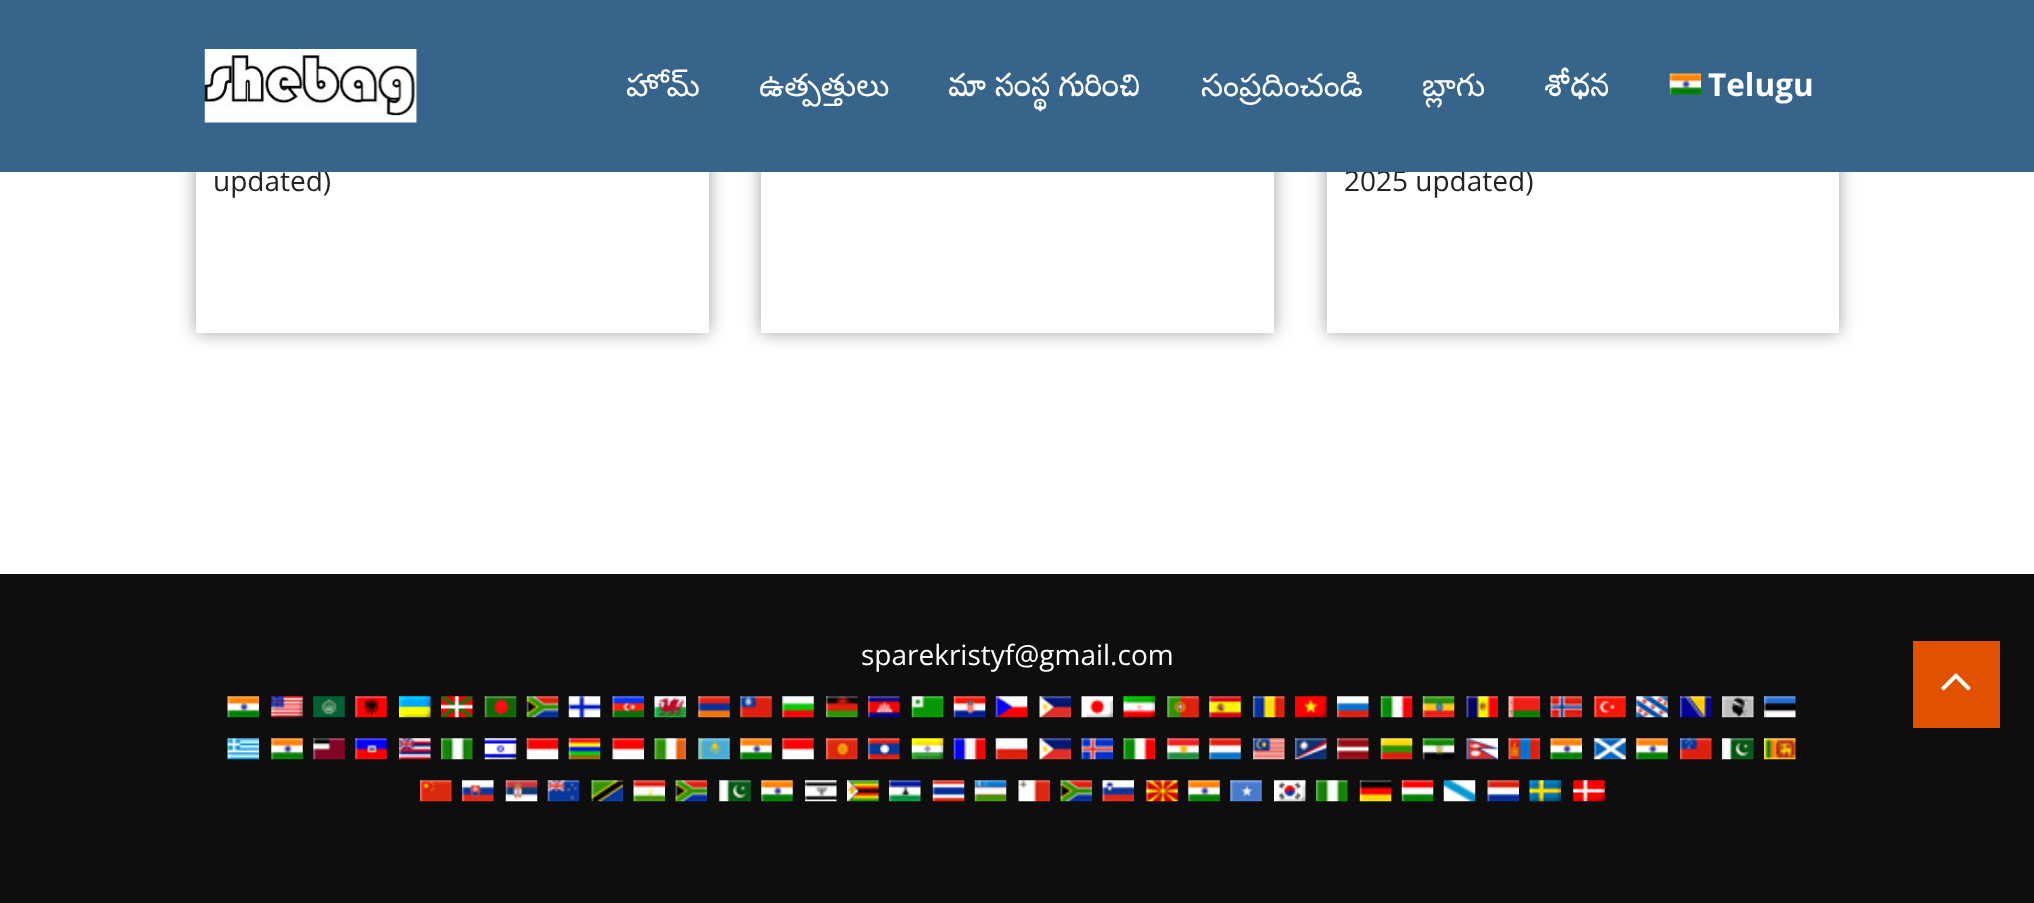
<svg xmlns="http://www.w3.org/2000/svg" width="2034" height="903" viewBox="0 0 2034 903">
  <defs>
    <clipPath id="clip1"><path d="M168 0H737V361H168ZM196-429H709V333H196Z" clip-rule="evenodd"/></clipPath>
    <clipPath id="clip2"><path d="M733 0H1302V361H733ZM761-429H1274V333H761Z" clip-rule="evenodd"/></clipPath>
    <clipPath id="clip3"><path d="M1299 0H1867V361H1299ZM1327-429H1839V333H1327Z" clip-rule="evenodd"/></clipPath>
  </defs>
  <rect width="100%" height="100%" fill="#fff"/>
  <g clip-path="url(#clip1)">
    <path d="M196 -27h513v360H196z" fill="#888888cc" filter="blur(9px)"/>
  </g>
  <g clip-path="url(#clip2)">
    <path d="M761 -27h513v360H761z" fill="#888888cc" filter="blur(9px)"/>
  </g>
  <g clip-path="url(#clip3)">
    <path d="M1327 -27h512v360H1327z" fill="#888888cc" filter="blur(9px)"/>
  </g>
  <path d="M0 574h2034v329H0z" fill="#0e0e0e"/>
  <image x="227" y="696" width="32" height="22" href="img/3.png"/>
  <image x="271" y="696" width="32" height="22" href="img/4.png"/>
  <image x="313" y="696" width="32" height="22" href="img/5.png"/>
  <image x="355" y="696" width="32" height="22" href="img/6.png"/>
  <image x="399" y="696" width="32" height="22" href="img/7.png"/>
  <image x="441" y="696" width="32" height="22" href="img/8.png"/>
  <image x="484" y="696" width="33" height="22" href="img/9.png"/>
  <image x="526" y="696" width="33" height="22" href="img/10.png"/>
  <image x="568" y="696" width="33" height="22" href="img/11.png"/>
  <image x="612" y="696" width="32" height="22" href="img/12.png"/>
  <image x="654" y="696" width="32" height="22" href="img/13.png"/>
  <image x="698" y="696" width="32" height="22" href="img/14.png"/>
  <image x="740" y="696" width="32" height="22" href="img/15.png"/>
  <image x="782" y="696" width="32" height="22" href="img/16.png"/>
  <image x="826" y="696" width="32" height="22" href="img/17.png"/>
  <image x="868" y="696" width="32" height="22" href="img/18.png"/>
  <image x="911" y="696" width="33" height="22" href="img/19.png"/>
  <image x="953" y="696" width="33" height="22" href="img/20.png"/>
  <image x="995" y="696" width="33" height="22" href="img/21.png"/>
  <image x="1039" y="696" width="32" height="22" href="img/22.png"/>
  <image x="1081" y="696" width="32" height="22" href="img/23.png"/>
  <image x="1123" y="696" width="32" height="22" href="img/24.png"/>
  <image x="1167" y="696" width="32" height="22" href="img/25.png"/>
  <image x="1209" y="696" width="32" height="22" href="img/26.png"/>
  <image x="1253" y="696" width="32" height="22" href="img/27.png"/>
  <image x="1295" y="696" width="32" height="22" href="img/28.png"/>
  <image x="1337" y="696" width="32" height="22" href="img/29.png"/>
  <image x="1380" y="696" width="33" height="22" href="img/30.png"/>
  <image x="1422" y="696" width="33" height="22" href="img/31.png"/>
  <image x="1466" y="696" width="32" height="22" href="img/32.png"/>
  <image x="1508" y="696" width="32" height="22" href="img/33.png"/>
  <image x="1550" y="696" width="32" height="22" href="img/34.png"/>
  <image x="1594" y="696" width="32" height="22" href="img/35.png"/>
  <image x="1636" y="696" width="32" height="22" href="img/36.png"/>
  <image x="1680" y="696" width="32" height="22" href="img/37.png"/>
  <image x="1722" y="696" width="32" height="22" href="img/38.png"/>
  <image x="1764" y="696" width="32" height="22" href="img/39.png"/>
  <image x="227" y="738" width="32" height="22" href="img/40.png"/>
  <image x="271" y="738" width="32" height="22" href="img/41.png"/>
  <image x="313" y="738" width="32" height="22" href="img/42.png"/>
  <image x="355" y="738" width="32" height="22" href="img/43.png"/>
  <image x="399" y="738" width="32" height="22" href="img/44.png"/>
  <image x="441" y="738" width="32" height="22" href="img/45.png"/>
  <image x="484" y="738" width="33" height="22" href="img/46.png"/>
  <image x="526" y="738" width="33" height="22" href="img/47.png"/>
  <image x="568" y="738" width="33" height="22" href="img/48.png"/>
  <image x="612" y="738" width="32" height="22" href="img/49.png"/>
  <image x="654" y="738" width="32" height="22" href="img/50.png"/>
  <image x="698" y="738" width="32" height="22" href="img/51.png"/>
  <image x="740" y="738" width="32" height="22" href="img/52.png"/>
  <image x="782" y="738" width="32" height="22" href="img/53.png"/>
  <image x="826" y="738" width="32" height="22" href="img/54.png"/>
  <image x="868" y="738" width="32" height="22" href="img/55.png"/>
  <image x="911" y="738" width="33" height="22" href="img/56.png"/>
  <image x="953" y="738" width="33" height="22" href="img/57.png"/>
  <image x="995" y="738" width="33" height="22" href="img/58.png"/>
  <image x="1039" y="738" width="32" height="22" href="img/22.png"/>
  <image x="1081" y="738" width="32" height="22" href="img/59.png"/>
  <image x="1123" y="738" width="32" height="22" href="img/60.png"/>
  <image x="1167" y="738" width="32" height="22" href="img/61.png"/>
  <image x="1209" y="738" width="32" height="22" href="img/62.png"/>
  <image x="1253" y="738" width="32" height="22" href="img/63.png"/>
  <image x="1295" y="738" width="32" height="22" href="img/64.png"/>
  <image x="1337" y="738" width="32" height="22" href="img/65.png"/>
  <image x="1380" y="738" width="33" height="22" href="img/66.png"/>
  <image x="1422" y="738" width="33" height="22" href="img/67.png"/>
  <image x="1466" y="738" width="32" height="22" href="img/68.png"/>
  <image x="1508" y="738" width="32" height="22" href="img/69.png"/>
  <image x="1550" y="738" width="32" height="22" href="img/3.png"/>
  <image x="1594" y="738" width="32" height="22" href="img/70.png"/>
  <image x="1636" y="738" width="32" height="22" href="img/41.png"/>
  <image x="1680" y="738" width="32" height="22" href="img/71.png"/>
  <image x="1722" y="738" width="32" height="22" href="img/72.png"/>
  <image x="1764" y="738" width="32" height="22" href="img/73.png"/>
  <image x="420" y="780" width="32" height="22" href="img/74.png"/>
  <image x="462" y="780" width="32" height="22" href="img/75.png"/>
  <image x="505" y="780" width="33" height="22" href="img/76.png"/>
  <image x="547" y="780" width="33" height="22" href="img/77.png"/>
  <image x="591" y="780" width="32" height="22" href="img/78.png"/>
  <image x="633" y="780" width="32" height="22" href="img/79.png"/>
  <image x="675" y="780" width="32" height="22" href="img/80.png"/>
  <image x="719" y="780" width="32" height="22" href="img/81.png"/>
  <image x="761" y="780" width="32" height="22" href="img/41.png"/>
  <image x="805" y="780" width="32" height="22" href="img/82.png"/>
  <image x="847" y="780" width="32" height="22" href="img/83.png"/>
  <image x="889" y="780" width="32" height="22" href="img/84.png"/>
  <image x="932" y="780" width="33" height="22" href="img/85.png"/>
  <image x="974" y="780" width="33" height="22" href="img/86.png"/>
  <image x="1018" y="780" width="32" height="22" href="img/87.png"/>
  <image x="1060" y="780" width="32" height="22" href="img/80.png"/>
  <image x="1102" y="780" width="32" height="22" href="img/88.png"/>
  <image x="1146" y="780" width="32" height="22" href="img/89.png"/>
  <image x="1188" y="780" width="32" height="22" href="img/41.png"/>
  <image x="1230" y="780" width="32" height="22" href="img/90.png"/>
  <image x="1274" y="780" width="32" height="22" href="img/91.png"/>
  <image x="1316" y="780" width="32" height="22" href="img/92.png"/>
  <image x="1359" y="780" width="33" height="22" href="img/93.png"/>
  <image x="1401" y="780" width="33" height="22" href="img/94.png"/>
  <image x="1443" y="780" width="33" height="22" href="img/95.png"/>
  <image x="1487" y="780" width="32" height="22" href="img/96.png"/>
  <image x="1529" y="780" width="32" height="22" href="img/97.png"/>
  <image x="1573" y="780" width="32" height="22" href="img/98.png"/>
  <path d="M1913 641h87v87H1913z" fill="#e05200"/>
  <image x="1941" y="673" width="30" height="18" href="img/99.png"/>
  <g font-family="Open Sans" font-size="28" fill="#222">
    <text x="213" y="191">updated)</text>
    <text x="1344" y="191">2025 updated)</text>
  </g>
  <path d="M0 0h2034v172H0z" fill="#36648b"/>
  <text x="1708" y="96" font-family="Open Sans" font-size="31.5" font-weight="bold" fill="#fff">Telugu</text>
  <image x="1669" y="73" width="32" height="22" href="img/2.png"/>
  <text x="1545" y="96" font-family="Mandali" font-size="31.5" font-weight="bold" fill="#fff">శోధన</text>
  <g font-family="Noto Sans Telugu" font-size="31.5" fill="#fff">
    <text x="1422" y="96">బ్లాగు</text>
    <text x="1201" y="96">సంప్రదించండి</text>
  </g>
  <text x="949" y="96" font-family="Mandali" font-size="31.5" font-weight="bold" fill="#fff">మా సంస్థ గురించి</text>
  <g font-family="Noto Sans Telugu" font-size="31.5" fill="#fff">
    <text x="759" y="96">ఉత్పత్తులు</text>
    <text x="626" y="96">హోమ్</text>
  </g>
  <image x="204" y="49" width="214" height="74" href="img/1.png"/>
  <text x="861" y="665" font-family="Open Sans" font-size="28" fill="#fff">sparekristyf@gmail.com</text>
</svg>
